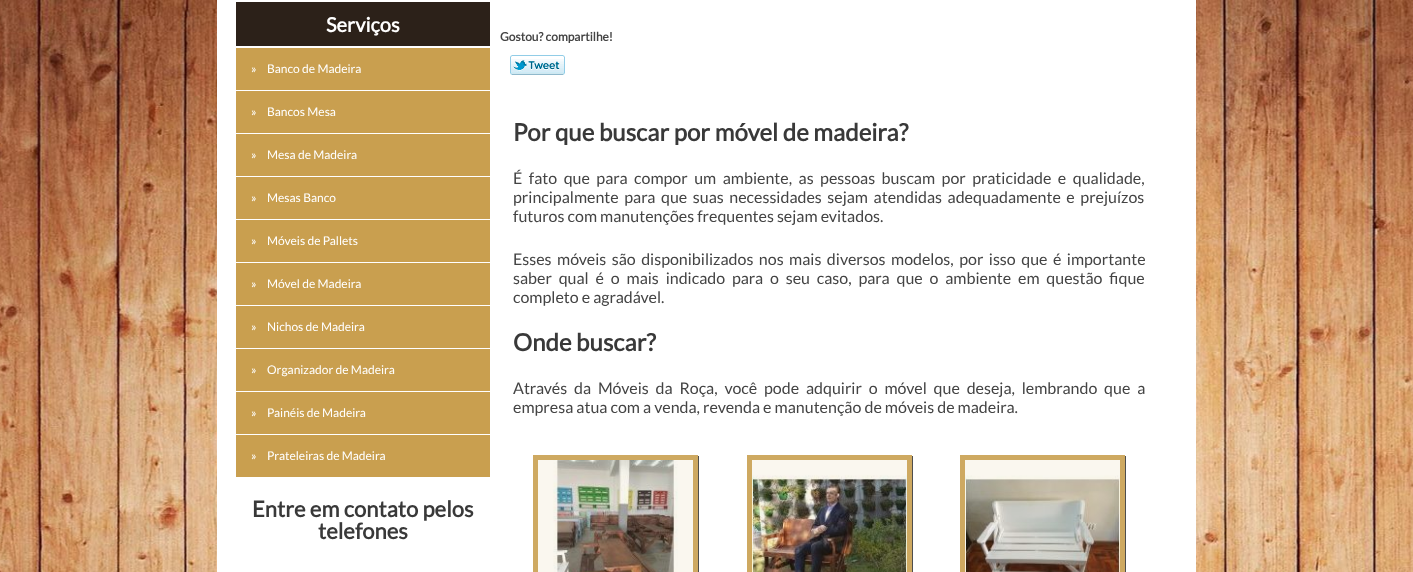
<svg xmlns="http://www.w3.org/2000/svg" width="1413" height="572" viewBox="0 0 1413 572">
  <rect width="100%" height="100%" fill="#fff"/>
  <image x="0" y="0" width="1413" height="572" href="img/1.png"/>
  <path d="M217 0h979v572H217z" fill="#fff"/>
  <path d="M236 2h254v44H236z" fill="#2c2119"/>
  <path d="M236 48h254v42H236z" fill="#c99f4f"/>
  <path d="M236 91h254v42H236z" fill="#c99f4f"/>
  <path d="M236 134h254v42H236z" fill="#c99f4f"/>
  <path d="M236 177h254v42H236z" fill="#c99f4f"/>
  <path d="M236 220h254v42H236z" fill="#c99f4f"/>
  <path d="M236 263h254v42H236z" fill="#c99f4f"/>
  <path d="M236 306h254v42H236z" fill="#c99f4f"/>
  <path d="M236 349h254v42H236z" fill="#c99f4f"/>
  <path d="M236 392h254v42H236z" fill="#c99f4f"/>
  <path d="M236 435h254v42H236z" fill="#c99f4f"/>
  <image x="510" y="55" width="55" height="20" href="img/2.png"/>
  <path d="M534 456h165v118H534z" fill="#4e4e4e" filter="blur(0.5px)"/>
  <path d="M533 455h165v117H533z" fill="#cea961"/>
  <image x="538" y="460" width="155" height="112" href="img/3.png"/>
  <path d="M748 456h165v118H748z" fill="#4e4e4e" filter="blur(0.5px)"/>
  <path d="M747 455h165v117H747z" fill="#cea961"/>
  <image x="752" y="460" width="155" height="112" href="img/4.png"/>
  <path d="M961 456h165v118H961z" fill="#4e4e4e" filter="blur(0.5px)"/>
  <path d="M960 455h165v117H960z" fill="#cea961"/>
  <image x="965" y="460" width="155" height="112" href="img/5.png"/>
  <text x="326" y="32" font-family="Lato" font-size="20" font-weight="bold" fill="#fff">Serviços</text>
  <g font-family="Lato" font-size="12" fill="#fff">
    <text x="251" y="73">»</text>
    <text x="267" y="73">Banco de Madeira</text>
    <text x="251" y="116">»</text>
    <text x="267" y="116">Bancos Mesa</text>
    <text x="251" y="159">»</text>
    <text x="267" y="159">Mesa de Madeira</text>
    <text x="251" y="202">»</text>
    <text x="267" y="202">Mesas Banco</text>
    <text x="251" y="245">»</text>
    <text x="267" y="245">Móveis de Pallets</text>
    <text x="251" y="288">»</text>
    <text x="267" y="288">Móvel de Madeira</text>
    <text x="251" y="331">»</text>
    <text x="267" y="331">Nichos de Madeira</text>
    <text x="251" y="374">»</text>
    <text x="267" y="374">Organizador de Madeira</text>
    <text x="251" y="417">»</text>
    <text x="267" y="417">Painéis de Madeira</text>
    <text x="251" y="460">»</text>
    <text x="267" y="460">Prateleiras de Madeira</text>
  </g>
  <g font-family="Lato" font-size="22" font-weight="bold" fill="#393939">
    <text x="252" y="517">Entre em contato pelos</text>
    <text x="318" y="539">telefones</text>
  </g>
  <text x="500" y="41" font-family="Lato" font-size="12" font-weight="bold" fill="#444">Gostou? compartilhe!</text>
  <text x="513" y="141" font-family="Lato" font-size="24" font-weight="bold" fill="#393939">Por que buscar por móvel de madeira?</text>
  <g font-family="Lato" font-size="16" fill="#444">
    <text x="513" y="184" word-spacing="3.4">É fato que para compor um ambiente, as pessoas buscam por praticidade e qualidade,</text>
    <text x="513" y="203" word-spacing="2.5">principalmente para que suas necessidades sejam atendidas adequadamente e prejuízos</text>
    <text x="513" y="222">futuros com manutenções frequentes sejam evitados.</text>
    <text x="513" y="265" word-spacing="2.4">Esses móveis são disponibilizados nos mais diversos modelos, por isso que é importante</text>
    <text x="513" y="284" word-spacing="3.75">saber qual é o mais indicado para o seu caso, para que o ambiente em questão fique</text>
    <text x="513" y="303">completo e agradável.</text>
  </g>
  <text x="513" y="351" font-family="Lato" font-size="24" font-weight="bold" fill="#393939">Onde buscar?</text>
  <g font-family="Lato" font-size="16" fill="#444">
    <text x="513" y="394" word-spacing="3.75">Através da Móveis da Roça, você pode adquirir o móvel que deseja, lembrando que a</text>
    <text x="513" y="413">empresa atua com a venda, revenda e manutenção de móveis de madeira.</text>
  </g>
</svg>
